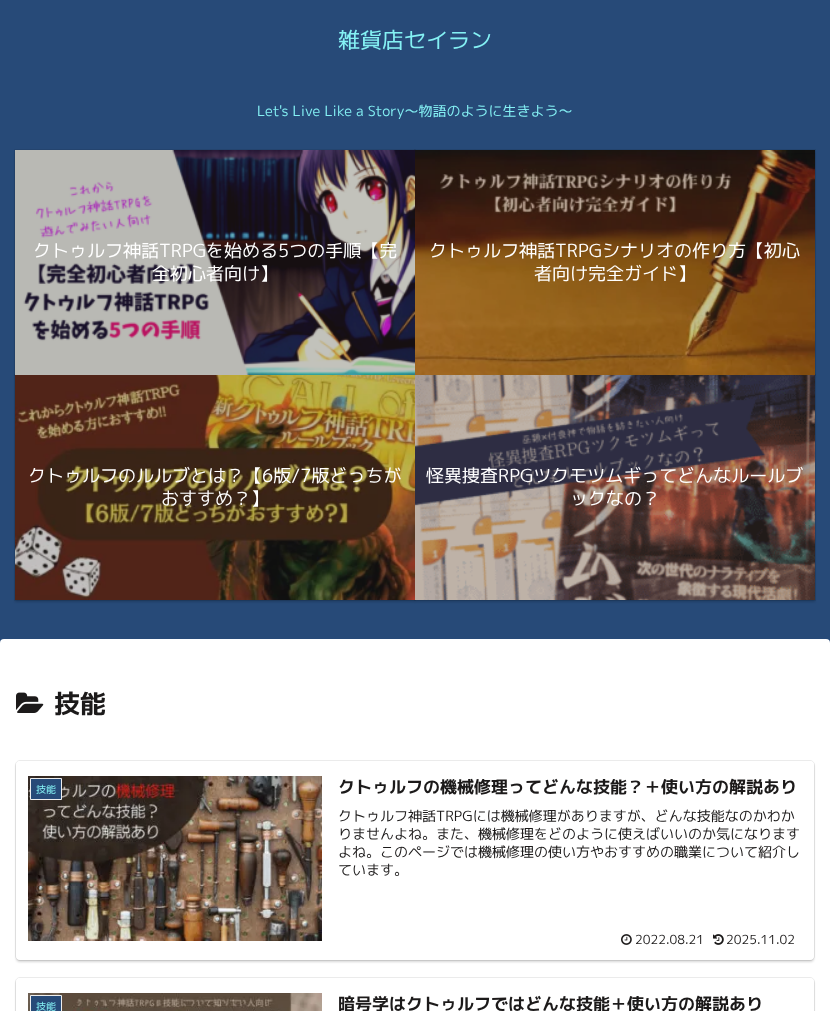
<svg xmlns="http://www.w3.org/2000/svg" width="830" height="1011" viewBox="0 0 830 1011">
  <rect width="100%" height="100%" fill="#274a78"/>
  <path d="M14.5 149.5h401v226H14.5z" fill="none" stroke="#24446e"/>
  <path d="M15 152h400v225H15z" fill="#00000029" filter="blur(1px)"/>
  <path d="M414.5 149.5h401v226H414.5z" fill="none" stroke="#00000014"/>
  <path d="M415 152h400v225H415z" fill="#00000029" filter="blur(1px)"/>
  <path d="M14.5 374.5h401v226H14.5z" fill="none" stroke="#00000014"/>
  <path d="M15 377h400v225H15z" fill="#00000029" filter="blur(1px)"/>
  <path d="M414.5 374.5h401v226H414.5z" fill="none" stroke="#00000014"/>
  <path d="M415 377h400v225H415z" fill="#00000029" filter="blur(1px)"/>
  <image x="15" y="150" width="400" height="225" href="img/1.png"/>
  <image x="415" y="150" width="400" height="225" href="img/2.png"/>
  <image x="15" y="375" width="400" height="225" href="img/3.png"/>
  <image x="415" y="375" width="400" height="225" href="img/4.png"/>
  <rect y="639" width="830" height="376" rx="4" fill="#fff"/>
  <image x="16" y="692" width="28" height="21" href="img/5.png"/>
  <rect x="15.5" y="760.5" width="799" height="200" rx="4.5" fill="none" stroke="#ebebeb"/>
  <rect x="16" y="763" width="798" height="199" rx="4" fill="#00000029" filter="blur(1px)"/>
  <rect x="16" y="761" width="798" height="199" rx="4" fill="#fff"/>
  <image x="28" y="776" width="294" height="165" href="img/6.png"/>
  <path d="M30.5 778.5h31v21H30.5z" fill="#274a78" stroke="#eee"/>
  <image x="621" y="934" width="11" height="11" href="img/7.png"/>
  <image x="713" y="934" width="11" height="11" href="img/8.png"/>
  <rect x="15.5" y="977.5" width="799" height="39" rx="4.5" fill="none" stroke="#ebebeb"/>
  <rect x="16" y="980" width="798" height="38" rx="4" fill="#00000029" filter="blur(1px)"/>
  <rect x="16" y="978" width="798" height="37" rx="4" fill="#fff"/>
  <image x="28" y="993" width="294" height="18" href="img/9.png"/>
  <path d="M30.5 995.5h31v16H30.5z" fill="#274a78" stroke="#eee"/>
  <text x="338" y="48" font-family="'M PLUS 1p'" font-size="22" fill="#84f1f4">雑貨店セイラン</text>
  <text x="257" y="116" font-family="'M PLUS 1p'" font-size="14" fill="#84f1f4">Let's Live Like a Story〜物語のように生きよう〜</text>
  <g font-family="'M PLUS 1p'" font-size="18" fill="#fff">
    <text x="33" y="257">クトゥルフ神話TRPGを始める5つの手順【完</text>
    <text x="152" y="280">全初心者向け】</text>
    <text x="429" y="257">クトゥルフ神話TRPGシナリオの作り方【初心</text>
    <text x="534" y="280">者向け完全ガイド】</text>
    <text x="28" y="482">クトゥルフのルルブとは？【6版/7版どっちが</text>
    <text x="161" y="505">おすすめ？】</text>
    <text x="426" y="482">怪異捜査RPGツクモツムギってどんなルールブ</text>
    <text x="570" y="505">ックなの？</text>
  </g>
  <text x="54" y="713" font-family="'M PLUS 1p'" font-size="26" font-weight="bold" fill="#1c1a1a">技能</text>
  <text x="36" y="793" font-family="'M PLUS 1p'" font-size="10" fill="#84f1f4">技能</text>
  <text x="338" y="793" font-family="'M PLUS 1p'" font-size="17" font-weight="bold" fill="#1c1a1a">クトゥルフの機械修理ってどんな技能？＋使い方の解説あり</text>
  <g font-family="'M PLUS 1p'" font-size="14" fill="#1c1a1a">
    <text x="338" y="821">クトゥルフ神話TRPGには機械修理がありますが、どんな技能なのかわか</text>
    <text x="338" y="839">りませんよね。また、機械修理をどのように使えばいいのか気になります</text>
    <text x="338" y="857">よね。このページでは機械修理の使い方やおすすめの職業について紹介し</text>
    <text x="338" y="875">ています。</text>
  </g>
  <g font-family="'M PLUS 1p'" font-size="12.5" fill="#1c1a1a">
    <text x="635" y="944">2022.08.21</text>
    <text x="726" y="944">2025.11.02</text>
  </g>
  <text x="36" y="1010" font-family="'M PLUS 1p'" font-size="10" fill="#84f1f4">技能</text>
  <text x="338" y="1010" font-family="'M PLUS 1p'" font-size="17" font-weight="bold" fill="#1c1a1a">暗号学はクトゥルフではどんな技能＋使い方の解説あり</text>
</svg>
